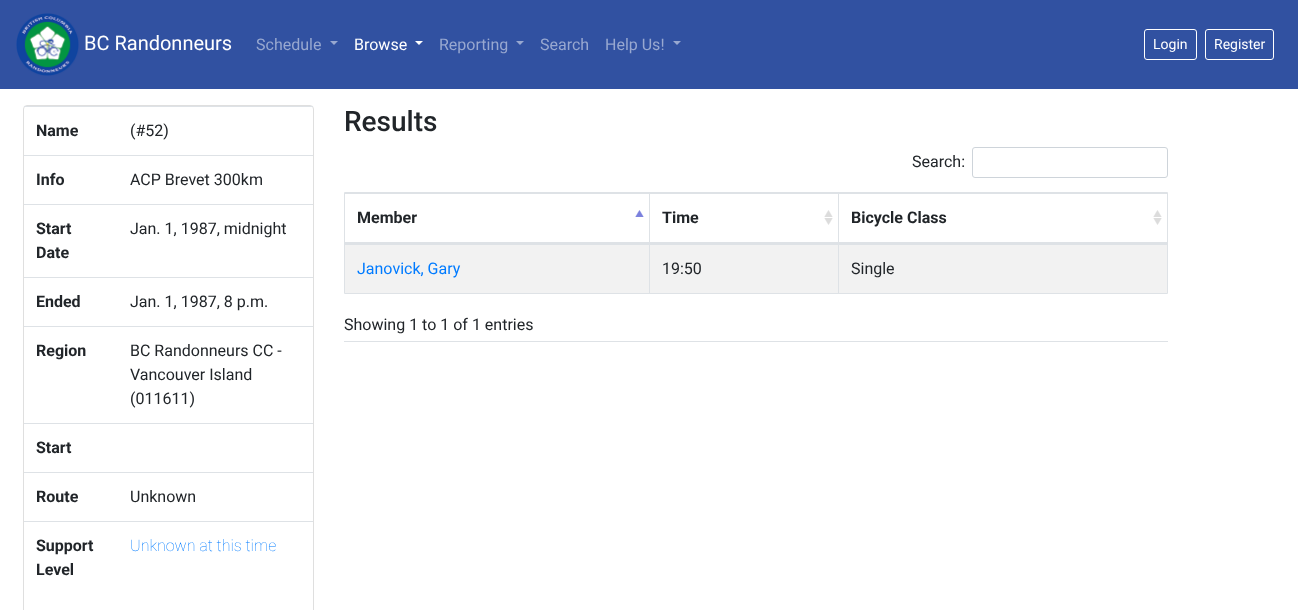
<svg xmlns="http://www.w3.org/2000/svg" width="1298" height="610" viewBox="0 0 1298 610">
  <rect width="100%" height="100%" fill="#fff"/>
  <path d="M0 0h1298v89H0z" fill="#3151a1"/>
  <image x="16" y="13" width="63" height="63" href="img/1.png"/>
  <path d="M330 41H338L334 45Z" fill="#98a8d0"/>
  <path d="M415 41H423L419 45Z" fill="#fff"/>
  <path d="M516 41H524L520 45Z" fill="#98a8d0"/>
  <path d="M673 41H681L677 45Z" fill="#98a8d0"/>
  <rect x="1144.5" y="29.5" width="52" height="30" rx="2.5" fill="none" stroke="#fff"/>
  <rect x="1205.5" y="29.5" width="68" height="30" rx="2.5" fill="none" stroke="#fff"/>
  <rect x="23.5" y="105.5" width="290" height="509" rx="3.5" fill="none" stroke="#dfdfdf"/>
  <path d="M24 106h289v1H24z" fill="#dee2e6"/>
  <path d="M24 155h289v1H24z" fill="#dee2e6"/>
  <path d="M24 204h289v1H24z" fill="#dee2e6"/>
  <path d="M24 277h289v1H24z" fill="#dee2e6"/>
  <path d="M24 326h289v1H24z" fill="#dee2e6"/>
  <path d="M24 423h289v1H24z" fill="#dee2e6"/>
  <path d="M24 472h289v1H24z" fill="#dee2e6"/>
  <path d="M24 521h289v1H24z" fill="#dee2e6"/>
  <path d="M344 341h824v1H344z" fill="#dee2e6"/>
  <rect x="972.5" y="147.5" width="195" height="30" rx="2.5" fill="none" stroke="#ced4da"/>
  <path d="M344.5 192.5h823v101H344.5z" fill="none" stroke="#dee2e6"/>
  <image x="635" y="210" width="9" height="7" href="img/2.png"/>
  <path d="M345 193h822v1H345z" fill="#dee2e6"/>
  <path d="M649 193h1v51H649z" fill="#dee2e6"/>
  <path d="M345 242h305v2H345z" fill="#dee2e6"/>
  <image x="824" y="210" width="9" height="15" href="img/3.png"/>
  <path d="M838 193h1v51H838z" fill="#dee2e6"/>
  <path d="M650 242h517v2H650z" fill="#dee2e6"/>
  <image x="1153" y="210" width="9" height="15" href="img/3.png"/>
  <path d="M345 245h822v48H345z" fill="#f2f2f2"/>
  <path d="M345 244h822v1H345z" fill="#dee2e6"/>
  <path d="M649 244h1v49H649z" fill="#dee2e6"/>
  <path d="M838 244h1v49H838z" fill="#dee2e6"/>
  <text x="84" y="50" font-family="Roboto" font-size="20" fill="#fff">BC Randonneurs</text>
  <text x="256" y="50" font-family="Roboto" font-size="16" fill="#98a8d0">Schedule</text>
  <text x="354" y="50" font-family="Roboto" font-size="16" fill="#fff">Browse</text>
  <g font-family="Roboto" font-size="16" fill="#98a8d0">
    <text x="439" y="50">Reporting</text>
    <text x="540" y="50">Search</text>
    <text x="605" y="50">Help Us!</text>
  </g>
  <g font-family="Roboto" font-size="14" fill="#fff">
    <text x="1153" y="49">Login</text>
    <text x="1214" y="49">Register</text>
  </g>
  <text x="36" y="136" font-family="Roboto" font-size="16" font-weight="bold" fill="#212529">Name</text>
  <text x="130" y="136" font-family="Roboto" font-size="16" fill="#212529">(#52)</text>
  <text x="36" y="185" font-family="Roboto" font-size="16" font-weight="bold" fill="#212529">Info</text>
  <text x="130" y="185" font-family="Roboto" font-size="16" fill="#212529">ACP Brevet 300km</text>
  <g font-family="Roboto" font-size="16" font-weight="bold" fill="#212529">
    <text x="36" y="234">Start</text>
    <text x="36" y="258">Date</text>
  </g>
  <text x="130" y="234" font-family="Roboto" font-size="16" fill="#212529">Jan. 1, 1987, midnight</text>
  <text x="36" y="307" font-family="Roboto" font-size="16" font-weight="bold" fill="#212529">Ended</text>
  <text x="130" y="307" font-family="Roboto" font-size="16" fill="#212529">Jan. 1, 1987, 8 p.m.</text>
  <text x="36" y="356" font-family="Roboto" font-size="16" font-weight="bold" fill="#212529">Region</text>
  <g font-family="Roboto" font-size="16" fill="#212529">
    <text x="130" y="356">BC Randonneurs CC -</text>
    <text x="130" y="380">Vancouver Island</text>
    <text x="130" y="404">(011611)</text>
  </g>
  <g font-family="Roboto" font-size="16" font-weight="bold" fill="#212529">
    <text x="36" y="453">Start</text>
    <text x="36" y="502">Route</text>
  </g>
  <text x="130" y="502" font-family="Roboto" font-size="16" fill="#212529">Unknown</text>
  <g font-family="Roboto" font-size="16" font-weight="bold" fill="#212529">
    <text x="36" y="551">Support</text>
    <text x="36" y="575">Level</text>
  </g>
  <text x="130" y="551" font-family="Roboto" font-size="16" font-weight="100" fill="#007bff">Unknown at this time</text>
  <text x="344" y="131" font-family="Roboto" font-size="28" font-weight="500" fill="#212529">Results</text>
  <text x="912" y="167" font-family="Roboto" font-size="16" fill="#212529">Search:</text>
  <g font-family="Roboto" font-size="16" font-weight="bold" fill="#212529">
    <text x="357" y="223">Member</text>
    <text x="662" y="223">Time</text>
    <text x="851" y="223">Bicycle Class</text>
  </g>
  <text x="357" y="274" font-family="Roboto" font-size="16" fill="#007bff">Janovick, Gary</text>
  <g font-family="Roboto" font-size="16" fill="#212529">
    <text x="662" y="274">19:50</text>
    <text x="851" y="274">Single</text>
    <text x="344" y="330">Showing 1 to 1 of 1 entries</text>
  </g>
</svg>
